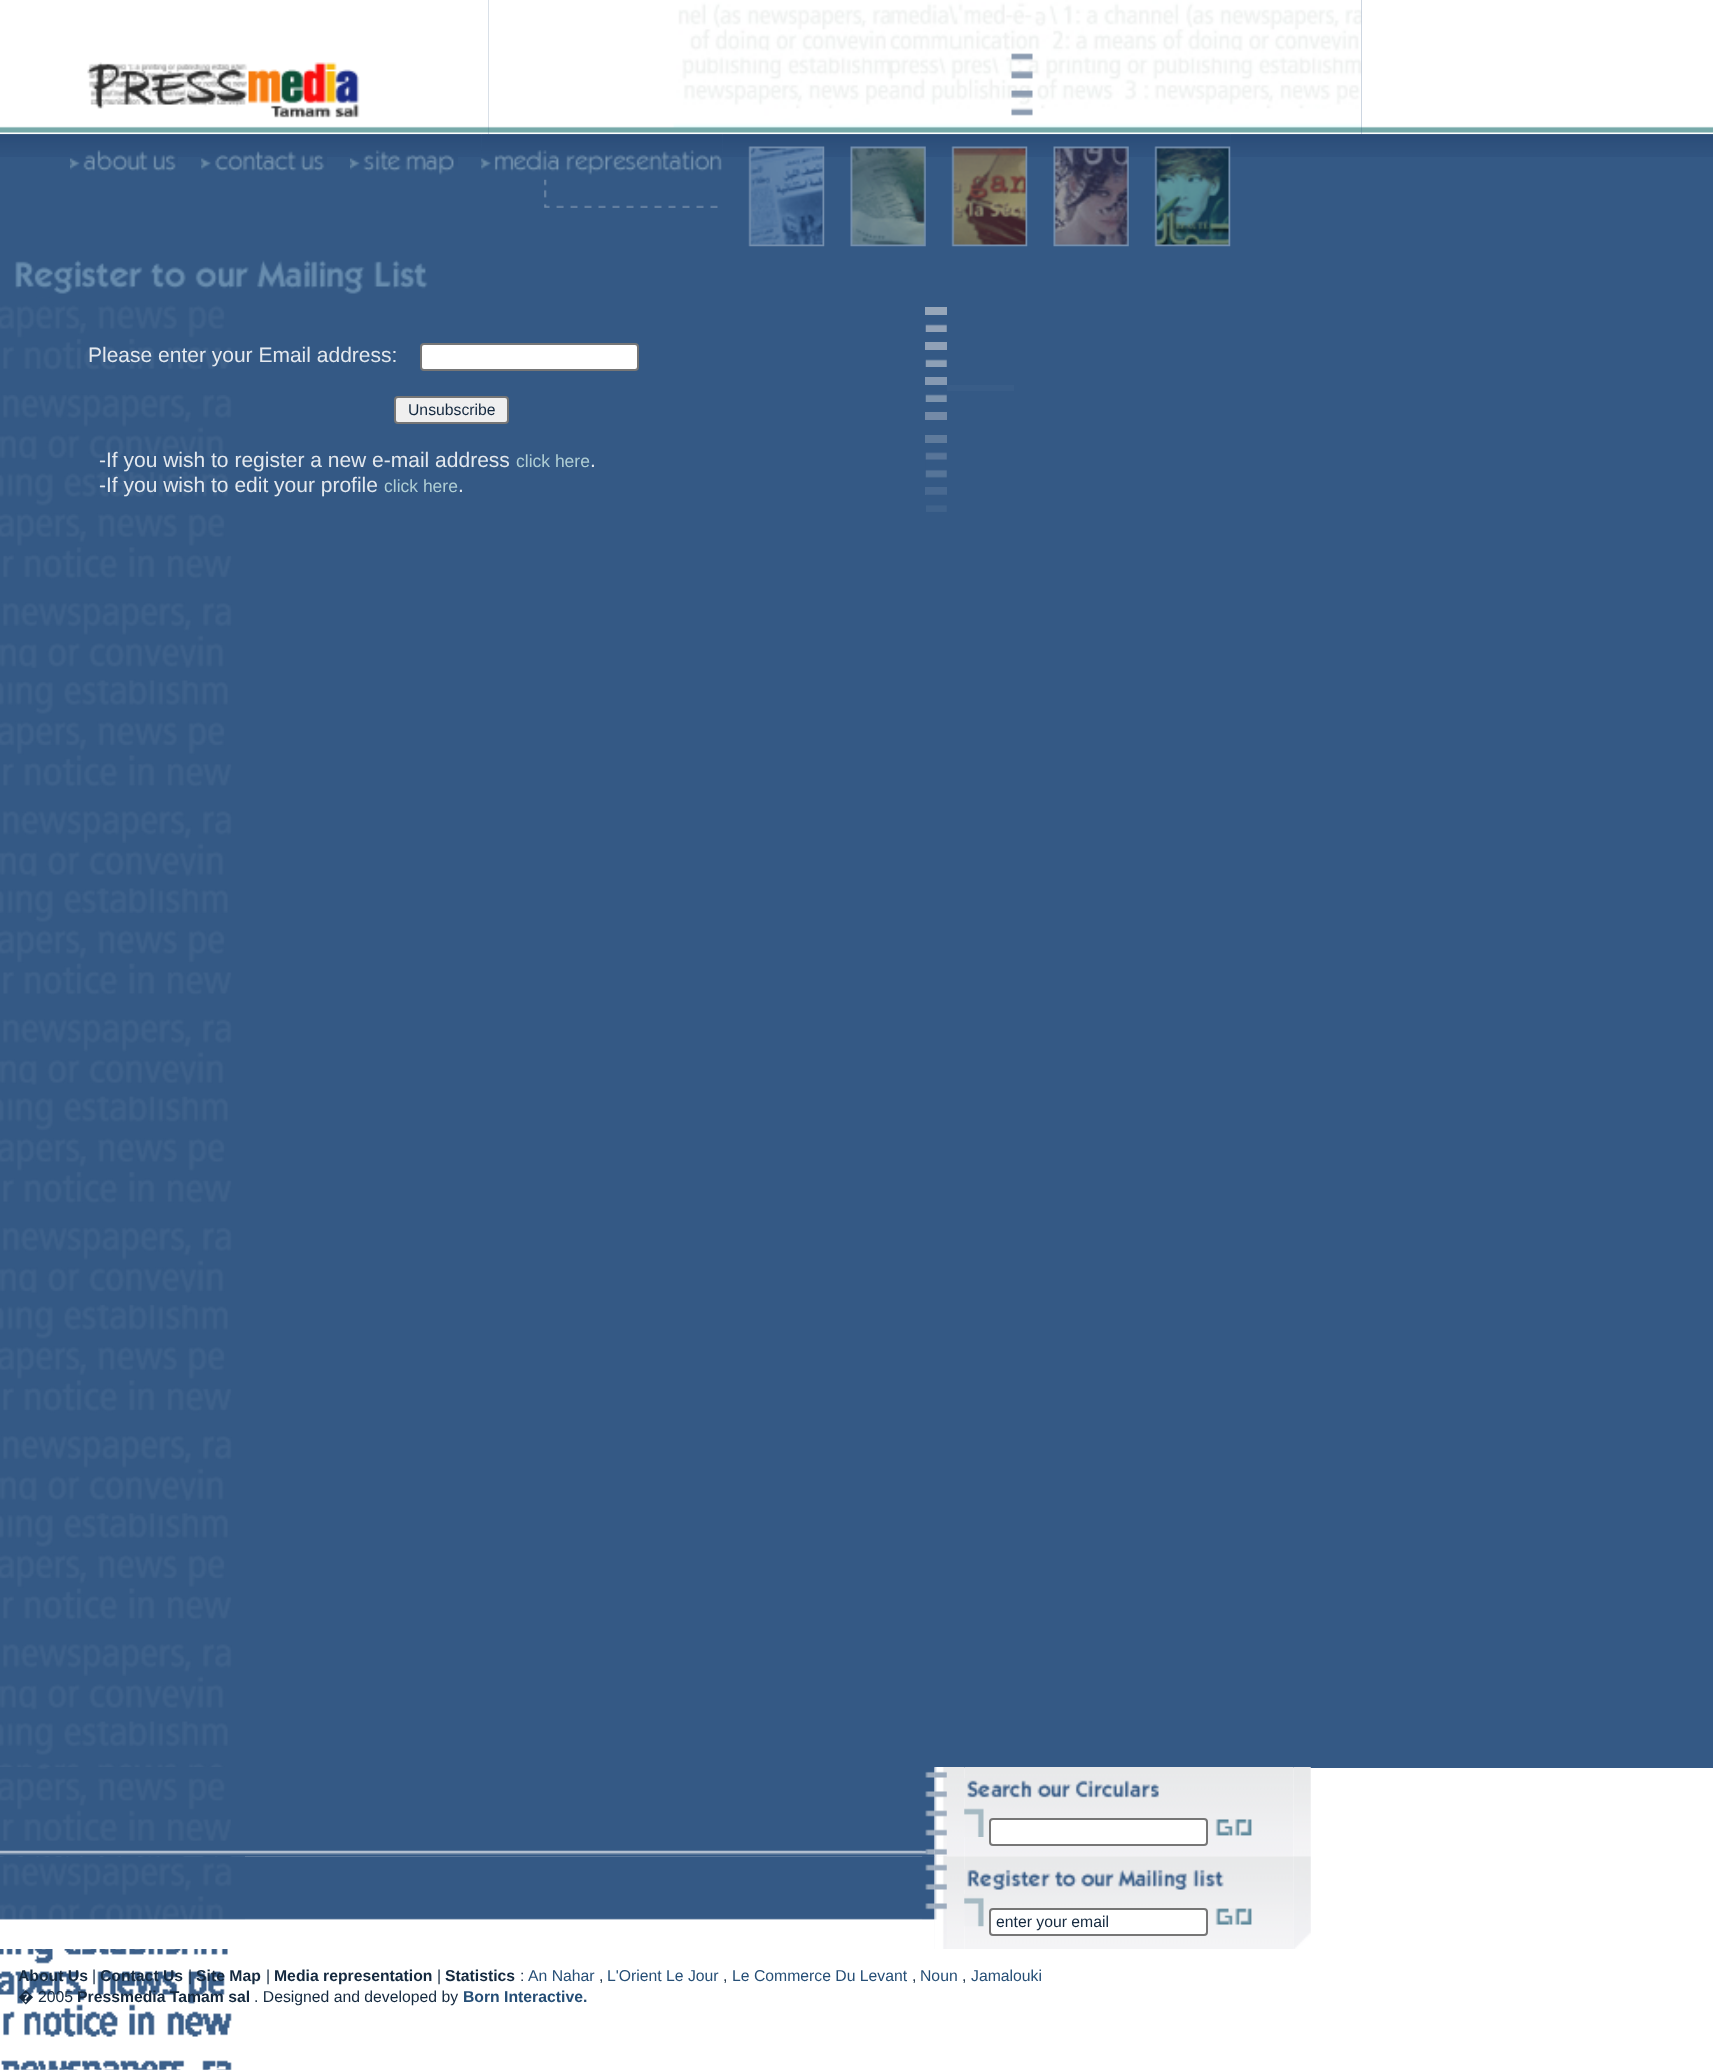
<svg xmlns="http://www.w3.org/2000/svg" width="1713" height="2070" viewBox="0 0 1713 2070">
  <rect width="100%" height="100%" fill="#fff"/>
  <path d="M0 0h1713v1768H0z" fill="#345985"/>
  <image x="0" y="0" width="489" height="135" href="img/1.png"/>
  <image x="87" y="62" width="273" height="56" href="img/2.png"/>
  <image x="488" y="0" width="874" height="135" href="img/3.png"/>
  <image x="1011" y="53" width="22" height="63" href="img/4.png"/>
  <image x="1361" y="0" width="352" height="135" href="img/5.png"/>
  <image x="0" y="134" width="70" height="23" href="img/6.png"/>
  <image x="70" y="134" width="412" height="23" href="img/7.png"/>
  <image x="70" y="150" width="108" height="21" href="img/8.png"/>
  <image x="201" y="151" width="126" height="20" href="img/9.png"/>
  <image x="350" y="150" width="108" height="25" href="img/10.png"/>
  <image x="481" y="134" width="242" height="23" href="img/11.png"/>
  <image x="481" y="150" width="241" height="25" href="img/12.png"/>
  <image x="544" y="179" width="174" height="29" href="img/13.png"/>
  <image x="722" y="134" width="509" height="23" href="img/14.png"/>
  <image x="748" y="146" width="77" height="101" href="img/15.png"/>
  <image x="850" y="146" width="76" height="101" href="img/16.png"/>
  <image x="951" y="146" width="77" height="101" href="img/17.png"/>
  <image x="1053" y="146" width="76" height="101" href="img/18.png"/>
  <image x="1230" y="134" width="483" height="23" href="img/20.png"/>
  <image x="1154" y="146" width="77" height="101" href="img/19.png"/>
  <image x="0" y="297" width="232" height="1773" href="img/21.png"/>
  <image x="0" y="260" width="428" height="37" href="img/22.png"/>
  <rect x="421" y="344" width="217" height="26" rx="3" fill="#fff" stroke="#767676" stroke-width="2"/>
  <rect x="395" y="397" width="113" height="26" rx="3" fill="#efefef" stroke="#767676" stroke-width="2"/>
  <path d="M947 385h67v6H947z" fill="#395d88"/>
  <path d="M925 307h22v8H925z" fill="#96a6b9"/>
  <image x="925" y="324" width="22" height="8" href="img/23.png"/>
  <path d="M925 342h22v8H925z" fill="#90a1b7"/>
  <image x="925" y="359" width="22" height="8" href="img/24.png"/>
  <path d="M925 377h22v8H925z" fill="#8599b2"/>
  <image x="925" y="394" width="22" height="8" href="img/25.png"/>
  <path d="M925 412h22v8H925z" fill="#748aa7"/>
  <path d="M925 435h22v8H925z" fill="#5f7b9c"/>
  <image x="925" y="452" width="22" height="8" href="img/26.png"/>
  <image x="925" y="459" width="22" height="19" href="img/27.png"/>
  <path d="M925 487h22v8H925z" fill="#486991"/>
  <image x="926" y="494" width="21" height="18" href="img/28.png"/>
  <image x="0" y="1767" width="245" height="90" href="img/29.png"/>
  <image x="0" y="1767" width="231" height="74" href="img/30.png"/>
  <image x="245" y="1768" width="690" height="89" href="img/31.png"/>
  <image x="934" y="1767" width="31" height="89" href="img/33.png"/>
  <image x="245" y="1856" width="690" height="64" href="img/42.png"/>
  <image x="934" y="1856" width="31" height="93" href="img/44.png"/>
  <image x="922" y="1767" width="13" height="90" href="img/32.png"/>
  <image x="934" y="1767" width="13" height="90" href="img/34.png"/>
  <image x="964" y="1767" width="330" height="89" href="img/35.png"/>
  <image x="964" y="1778" width="195" height="20" href="img/36.png"/>
  <image x="964" y="1808" width="20" height="29" href="img/37.png"/>
  <rect x="990" y="1819" width="217" height="26" rx="3" fill="#fff" stroke="#767676" stroke-width="2"/>
  <image x="1215" y="1819" width="37" height="17" href="img/38.png"/>
  <image x="1293" y="1767" width="18" height="89" href="img/39.png"/>
  <image x="0" y="1856" width="245" height="93" href="img/40.png"/>
  <image x="0" y="1856" width="245" height="64" href="img/41.png"/>
  <image x="922" y="1856" width="13" height="64" href="img/43.png"/>
  <image x="934" y="1856" width="13" height="93" href="img/45.png"/>
  <image x="964" y="1856" width="330" height="93" href="img/46.png"/>
  <image x="964" y="1869" width="260" height="21" href="img/47.png"/>
  <image x="964" y="1894" width="20" height="33" href="img/48.png"/>
  <rect x="990" y="1909" width="217" height="26" rx="3" fill="#fff" stroke="#767676" stroke-width="2"/>
  <image x="1215" y="1908" width="37" height="17" href="img/49.png"/>
  <image x="1293" y="1856" width="18" height="93" href="img/50.png"/>
  <text x="88" y="362" font-family="Liberation Sans" font-size="21" fill="#e3e8ee">Please enter your Email address:</text>
  <text x="408" y="415" font-family="Liberation Sans" font-size="15.75" fill="#14293f">Unsubscribe</text>
  <text x="99" y="467" font-family="Liberation Sans" font-size="21" fill="#e3e8ee">-If you wish to register a new e-mail address</text>
  <text x="516" y="467" font-family="Liberation Sans" font-size="17.5" fill="#afced4">click here</text>
  <g font-family="Liberation Sans" font-size="21" fill="#e3e8ee">
    <text x="590" y="467">.</text>
    <text x="99" y="492">-If you wish to edit your profile</text>
  </g>
  <text x="384" y="492" font-family="Liberation Sans" font-size="17.5" fill="#afced4">click here</text>
  <text x="458" y="492" font-family="Liberation Sans" font-size="21" fill="#e3e8ee">.</text>
  <text x="996" y="1927" font-family="Liberation Sans" font-size="15.75" fill="#14293f">enter your email</text>
  <text x="18" y="1981" font-family="Liberation Sans" font-size="15.75" font-weight="bold" fill="#14293f">About Us</text>
  <text x="92" y="1981" font-family="Liberation Sans" font-size="15.75" fill="#14293f">|</text>
  <text x="100" y="1981" font-family="Liberation Sans" font-size="15.75" font-weight="bold" fill="#14293f">Contact Us</text>
  <text x="188" y="1981" font-family="Liberation Sans" font-size="15.75" fill="#14293f">|</text>
  <text x="196" y="1981" font-family="Liberation Sans" font-size="15.75" font-weight="bold" fill="#14293f">Site Map</text>
  <text x="266" y="1981" font-family="Liberation Sans" font-size="15.75" fill="#14293f">|</text>
  <text x="274" y="1981" font-family="Liberation Sans" font-size="15.75" font-weight="bold" fill="#14293f">Media representation</text>
  <text x="437" y="1981" font-family="Liberation Sans" font-size="15.75" fill="#14293f">|</text>
  <text x="445" y="1981" font-family="Liberation Sans" font-size="15.75" font-weight="bold" fill="#14293f">Statistics</text>
  <text x="520" y="1981" font-family="Liberation Sans" font-size="15.75" fill="#14293f">:</text>
  <text x="528" y="1981" font-family="Liberation Sans" font-size="15.75" fill="#254e76">An Nahar</text>
  <text x="599" y="1981" font-family="Liberation Sans" font-size="15.75" fill="#14293f">,</text>
  <text x="607" y="1981" font-family="Liberation Sans" font-size="15.75" fill="#254e76">L'Orient Le Jour</text>
  <text x="723" y="1981" font-family="Liberation Sans" font-size="15.75" fill="#14293f">,</text>
  <text x="732" y="1981" font-family="Liberation Sans" font-size="15.75" fill="#254e76">Le Commerce Du Levant</text>
  <text x="912" y="1981" font-family="Liberation Sans" font-size="15.75" fill="#14293f">,</text>
  <text x="920" y="1981" font-family="Liberation Sans" font-size="15.75" fill="#254e76">Noun</text>
  <text x="962" y="1981" font-family="Liberation Sans" font-size="15.75" fill="#14293f">,</text>
  <text x="971" y="1981" font-family="Liberation Sans" font-size="15.75" fill="#254e76">Jamalouki</text>
  <text x="18" y="2002" font-family="Noto Sans" font-size="15.75" fill="#14293f">�</text>
  <text x="38" y="2002" font-family="Liberation Sans" font-size="15.75" fill="#14293f">2005</text>
  <text x="77" y="2002" font-family="Liberation Sans" font-size="15.75" font-weight="bold" fill="#14293f">Pressmedia Tamam sal</text>
  <text x="254" y="2002" font-family="Liberation Sans" font-size="15.75" fill="#14293f">. Designed and developed by</text>
  <text x="463" y="2002" font-family="Liberation Sans" font-size="15.75" font-weight="bold" fill="#254e76">Born Interactive.</text>
</svg>
